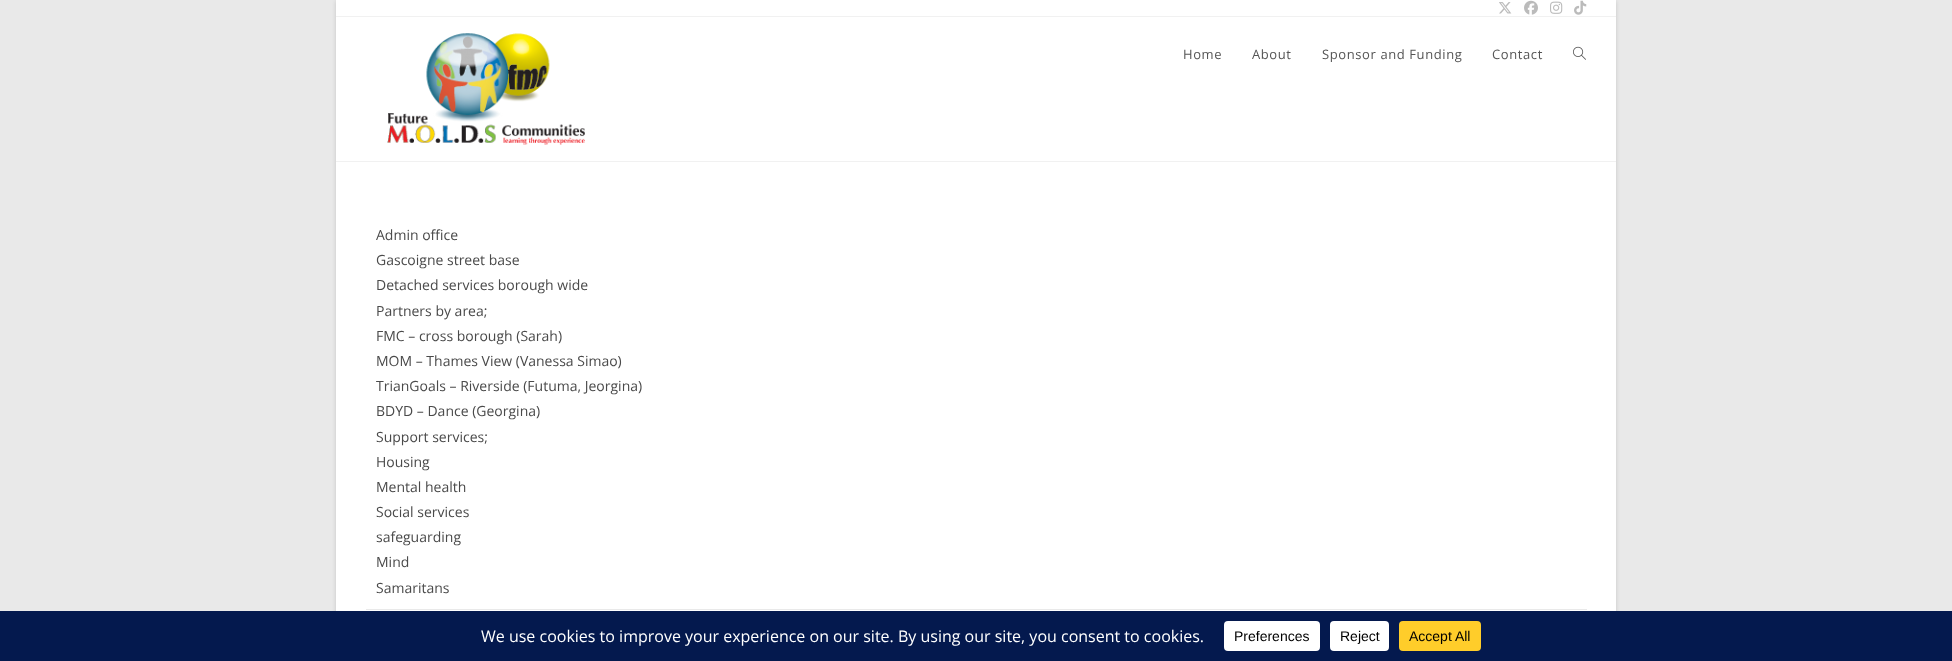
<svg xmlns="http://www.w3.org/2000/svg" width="1952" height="661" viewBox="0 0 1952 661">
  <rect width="100%" height="100%" fill="#e9e9e9"/>
  <path d="M336 1h1280v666H336z" fill="#00000026" filter="blur(2px)"/>
  <path d="M336 0h1280v611H336z" fill="#fff"/>
  <path d="M336 16h1280v1H336z" fill="#f1f1f1"/>
  <image x="1499" y="2" width="13" height="12" href="img/1.png"/>
  <image x="1524" y="0" width="14" height="15" href="img/2.png"/>
  <image x="1550" y="1" width="13" height="13" href="img/3.png"/>
  <image x="1574" y="0" width="13" height="15" href="img/4.png"/>
  <path d="M336 161h1280v1H336z" fill="#f1f1f1"/>
  <image x="387" y="33" width="198" height="112" href="img/5.png"/>
  <image x="1573" y="46" width="13" height="14" href="img/6.png"/>
  <path d="M366 609h1221v1H366z" fill="#e9e9e9"/>
  <path d="M0 611h1952v50H0z" fill="#04194e"/>
  <rect x="1224" y="621" width="96" height="30" rx="4" fill="#fff"/>
  <rect x="1330" y="621" width="59" height="30" rx="4" fill="#fff"/>
  <rect x="1399" y="621" width="82" height="30" rx="4" fill="#ffcd2a"/>
  <g font-family="Open Sans" font-size="13" letter-spacing="0.6" fill="#555">
    <text x="1183" y="59">Home</text>
    <text x="1252" y="59">About</text>
    <text x="1322" y="59">Sponsor and Funding</text>
    <text x="1492" y="59">Contact</text>
  </g>
  <g font-family="Open Sans" font-size="14" fill="#4a4a4a">
    <text x="376" y="240">Admin office</text>
    <text x="376" y="265">Gascoigne street base</text>
    <text x="376" y="290">Detached services borough wide</text>
    <text x="376" y="316">Partners by area;</text>
    <text x="376" y="341">FMC – cross borough (Sarah)</text>
    <text x="376" y="366">MOM – Thames View (Vanessa Simao)</text>
    <text x="376" y="391">TrianGoals – Riverside (Futuma, Jeorgina)</text>
    <text x="376" y="416">BDYD – Dance (Georgina)</text>
    <text x="376" y="442">Support services;</text>
    <text x="376" y="467">Housing</text>
    <text x="376" y="492">Mental health</text>
    <text x="376" y="517">Social services</text>
    <text x="376" y="542">safeguarding</text>
    <text x="376" y="567">Mind</text>
    <text x="376" y="593">Samaritans</text>
  </g>
  <text x="481" y="642" font-family="Open Sans" font-size="16" fill="#fff">We use cookies to improve your experience on our site. By using our site, you consent to cookies.</text>
  <g font-family="Liberation Sans" font-size="14" fill="#000">
    <text x="1234" y="641">Preferences</text>
    <text x="1340" y="641">Reject</text>
    <text x="1409" y="641">Accept All</text>
  </g>
</svg>
